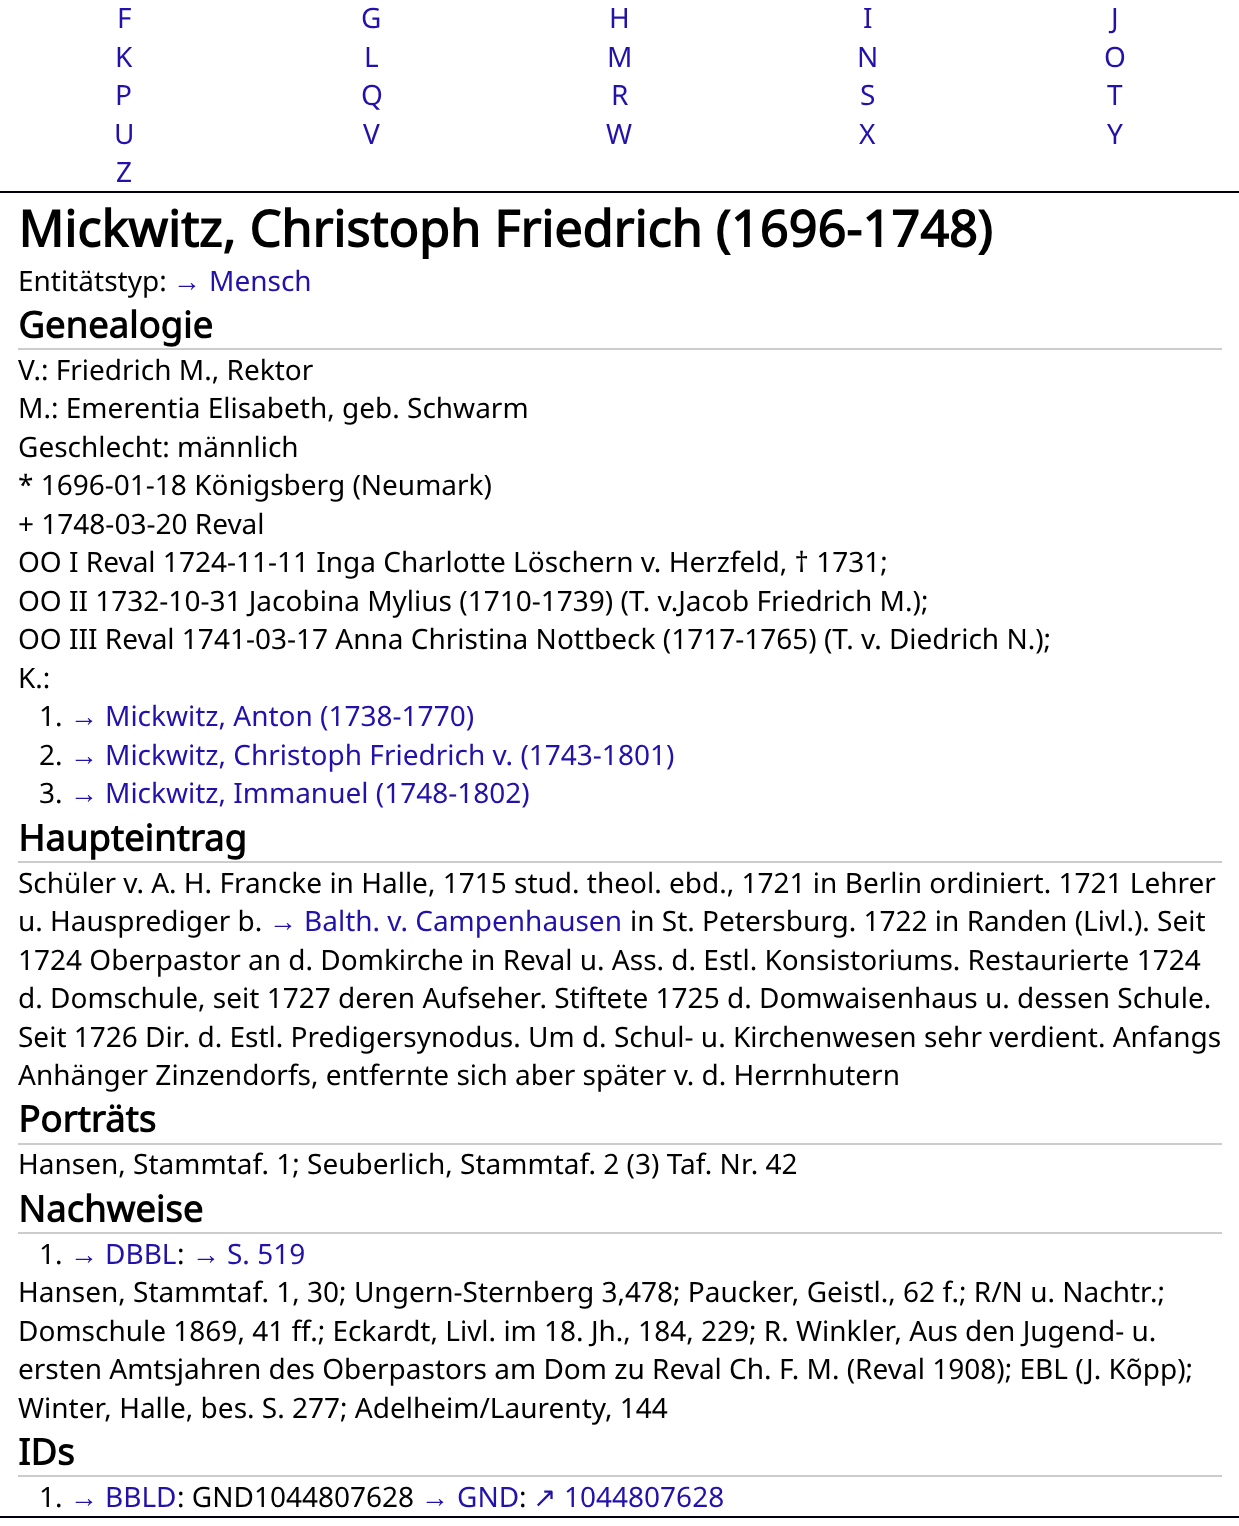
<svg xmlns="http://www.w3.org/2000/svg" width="1239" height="1526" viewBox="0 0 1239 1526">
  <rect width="100%" height="100%" fill="#fff"/>
  <path d="M0 191h1239v2H0z" fill="#001"/>
  <path d="M18 348h1204v2H18z" fill="#ccc"/>
  <path d="M18 861h1204v2H18z" fill="#ccc"/>
  <path d="M18 1143h1204v2H18z" fill="#ccc"/>
  <path d="M18 1232h1204v2H18z" fill="#ccc"/>
  <path d="M18 1475h1204v2H18z" fill="#ccc"/>
  <path d="M0 1516h1239v2H0z" fill="#001"/>
  <g font-family="Noto Sans" font-size="28" fill="#21a">
    <text x="117" y="28">F</text>
    <text x="361" y="28">G</text>
    <text x="609" y="28">H</text>
    <text x="863" y="28">I</text>
    <text x="1111" y="28">J</text>
    <text x="115" y="67">K</text>
    <text x="364" y="67">L</text>
    <text x="607" y="67">M</text>
    <text x="857" y="67">N</text>
    <text x="1104" y="67">O</text>
    <text x="115" y="105">P</text>
    <text x="361" y="105">Q</text>
    <text x="611" y="105">R</text>
    <text x="860" y="105">S</text>
    <text x="1107" y="105">T</text>
    <text x="114" y="144">U</text>
    <text x="363" y="144">V</text>
    <text x="606" y="144">W</text>
    <text x="859" y="144">X</text>
    <text x="1107" y="144">Y</text>
    <text x="116" y="182">Z</text>
  </g>
  <text x="18" y="247" font-family="Noto Sans" font-size="50.4" font-weight="bold" fill="#000">Mickwitz, Christoph Friedrich (1696-1748)</text>
  <text x="18" y="291" font-family="Noto Sans" font-size="28" fill="#000">Entitätstyp:</text>
  <text x="173" y="291" font-family="Liberation Serif" font-size="28" fill="#21a">→</text>
  <text x="209" y="291" font-family="Noto Sans" font-size="28" fill="#21a">Mensch</text>
  <text x="18" y="338" font-family="Noto Sans" font-size="36.5" font-weight="bold" fill="#000">Genealogie</text>
  <g font-family="Noto Sans" font-size="28" fill="#000">
    <text x="18" y="380">V.: Friedrich M., Rektor</text>
    <text x="18" y="418">M.: Emerentia Elisabeth, geb. Schwarm</text>
    <text x="18" y="457">Geschlecht: männlich</text>
    <text x="18" y="495">* 1696-01-18 Königsberg (Neumark)</text>
    <text x="18" y="534">+ 1748-03-20 Reval</text>
    <text x="18" y="572">OO I Reval 1724-11-11 Inga Charlotte Löschern v. Herzfeld, † 1731;</text>
    <text x="18" y="611">OO II 1732-10-31 Jacobina Mylius (1710-1739) (T. v.Jacob Friedrich M.);</text>
    <text x="18" y="649">OO III Reval 1741-03-17 Anna Christina Nottbeck (1717-1765) (T. v. Diedrich N.);</text>
    <text x="18" y="688">K.:</text>
    <text x="39" y="726">1.</text>
  </g>
  <text x="70" y="726" font-family="Liberation Serif" font-size="28" fill="#21a">→</text>
  <text x="105" y="726" font-family="Noto Sans" font-size="28" fill="#21a">Mickwitz, Anton (1738-1770)</text>
  <text x="39" y="765" font-family="Noto Sans" font-size="28" fill="#000">2.</text>
  <text x="70" y="765" font-family="Liberation Serif" font-size="28" fill="#21a">→</text>
  <text x="105" y="765" font-family="Noto Sans" font-size="28" fill="#21a">Mickwitz, Christoph Friedrich v. (1743-1801)</text>
  <text x="39" y="803" font-family="Noto Sans" font-size="28" fill="#000">3.</text>
  <text x="70" y="803" font-family="Liberation Serif" font-size="28" fill="#21a">→</text>
  <text x="105" y="803" font-family="Noto Sans" font-size="28" fill="#21a">Mickwitz, Immanuel (1748-1802)</text>
  <text x="18" y="851" font-family="Noto Sans" font-size="36.5" font-weight="bold" fill="#000">Haupteintrag</text>
  <g font-family="Noto Sans" font-size="28" fill="#000">
    <text x="18" y="893">Schüler v. A. H. Francke in Halle, 1715 stud. theol. ebd., 1721 in Berlin ordiniert. 1721 Lehrer</text>
    <text x="18" y="931">u. Hausprediger b.</text>
  </g>
  <text x="269" y="931" font-family="Liberation Serif" font-size="28" fill="#21a">→</text>
  <text x="304" y="931" font-family="Noto Sans" font-size="28" fill="#21a">Balth. v. Campenhausen</text>
  <g font-family="Noto Sans" font-size="28" fill="#000">
    <text x="630" y="931">in St. Petersburg. 1722 in Randen (Livl.). Seit</text>
    <text x="18" y="970">1724 Oberpastor an d. Domkirche in Reval u. Ass. d. Estl. Konsistoriums. Restaurierte 1724</text>
    <text x="18" y="1008">d. Domschule, seit 1727 deren Aufseher. Stiftete 1725 d. Domwaisenhaus u. dessen Schule.</text>
    <text x="18" y="1047">Seit 1726 Dir. d. Estl. Predigersynodus. Um d. Schul- u. Kirchenwesen sehr verdient. Anfangs</text>
    <text x="18" y="1085">Anhänger Zinzendorfs, entfernte sich aber später v. d. Herrnhutern</text>
  </g>
  <text x="18" y="1132" font-family="Noto Sans" font-size="36.5" font-weight="bold" fill="#000">Porträts</text>
  <text x="18" y="1174" font-family="Noto Sans" font-size="28" fill="#000">Hansen, Stammtaf. 1; Seuberlich, Stammtaf. 2 (3) Taf. Nr. 42</text>
  <text x="18" y="1222" font-family="Noto Sans" font-size="36.5" font-weight="bold" fill="#000">Nachweise</text>
  <text x="39" y="1264" font-family="Noto Sans" font-size="28" fill="#000">1.</text>
  <text x="70" y="1264" font-family="Liberation Serif" font-size="28" fill="#21a">→</text>
  <text x="105" y="1264" font-family="Noto Sans" font-size="28" fill="#21a">DBBL</text>
  <text x="177" y="1264" font-family="Noto Sans" font-size="28" fill="#000">:</text>
  <text x="192" y="1264" font-family="Liberation Serif" font-size="28" fill="#21a">→</text>
  <text x="227" y="1264" font-family="Noto Sans" font-size="28" fill="#21a">S. 519</text>
  <g font-family="Noto Sans" font-size="28" fill="#000">
    <text x="18" y="1302">Hansen, Stammtaf. 1, 30; Ungern-Sternberg 3,478; Paucker, Geistl., 62 f.; R/N u. Nachtr.;</text>
    <text x="18" y="1341">Domschule 1869, 41 ff.; Eckardt, Livl. im 18. Jh., 184, 229; R. Winkler, Aus den Jugend- u.</text>
    <text x="18" y="1379">ersten Amtsjahren des Oberpastors am Dom zu Reval Ch. F. M. (Reval 1908); EBL (J. Kõpp);</text>
    <text x="18" y="1418">Winter, Halle, bes. S. 277; Adelheim/Laurenty, 144</text>
  </g>
  <text x="18" y="1465" font-family="Noto Sans" font-size="36.5" font-weight="bold" fill="#000">IDs</text>
  <text x="39" y="1507" font-family="Noto Sans" font-size="28" fill="#000">1.</text>
  <text x="70" y="1507" font-family="Liberation Serif" font-size="28" fill="#21a">→</text>
  <text x="105" y="1507" font-family="Noto Sans" font-size="28" fill="#21a">BBLD</text>
  <text x="177" y="1507" font-family="Noto Sans" font-size="28" fill="#000">: GND1044807628</text>
  <text x="421" y="1507" font-family="Liberation Serif" font-size="28" fill="#21a">→</text>
  <text x="457" y="1507" font-family="Noto Sans" font-size="28" fill="#21a">GND</text>
  <text x="519" y="1507" font-family="Noto Sans" font-size="28" fill="#000">:</text>
  <text x="533" y="1507" font-family="DejaVu Sans" font-size="28" fill="#21a">↗</text>
  <text x="564" y="1507" font-family="Noto Sans" font-size="28" fill="#21a">1044807628</text>
</svg>
